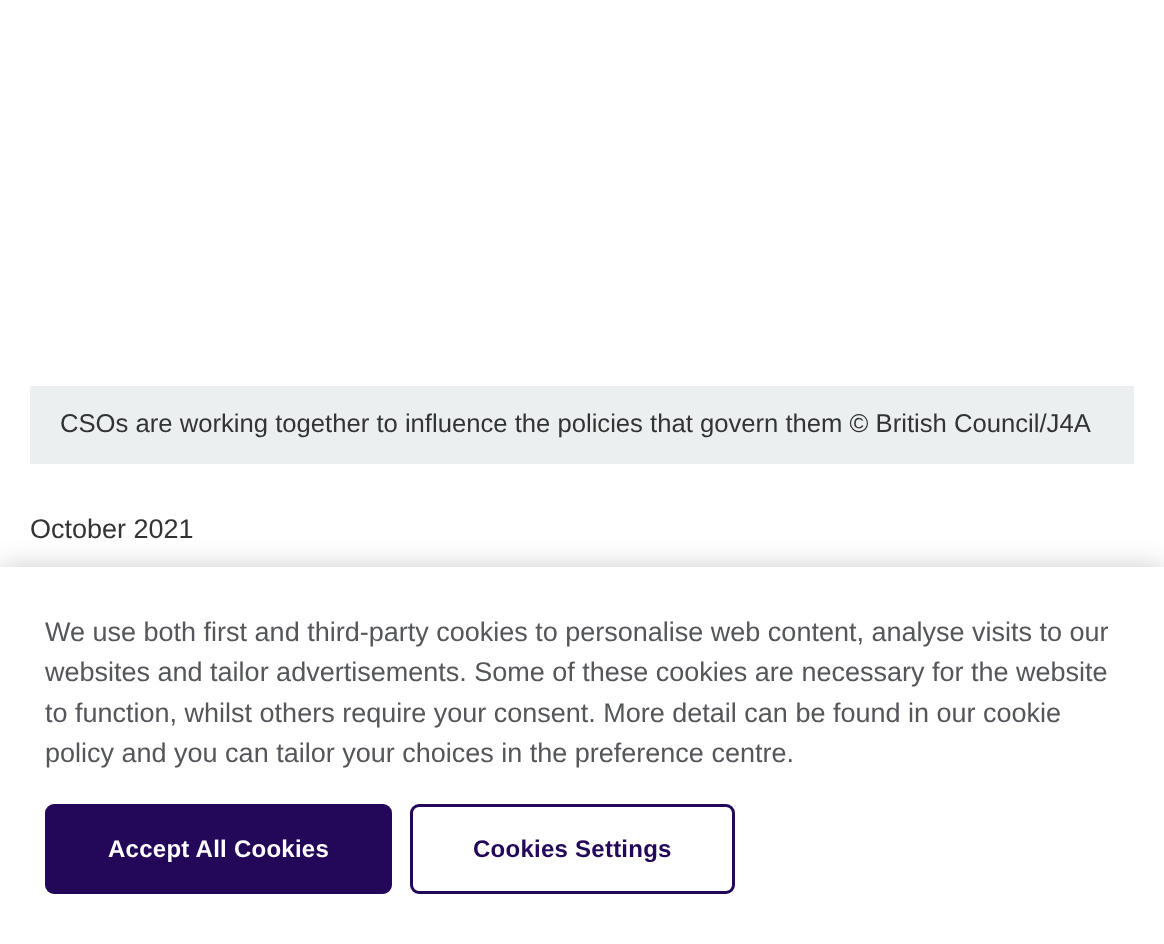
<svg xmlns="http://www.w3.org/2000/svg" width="1164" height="944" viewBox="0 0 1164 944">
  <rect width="100%" height="100%" fill="#fff"/>
  <path d="M30 386h1104v78H30z" fill="#ebeff0"/>
  <path d="M0 567h1164v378H0z" fill="#00000033" filter="blur(13.5px)"/>
  <path d="M0 567h1164v377H0z" fill="#fff"/>
  <rect x="46.5" y="805.5" width="344" height="87" rx="7.5" fill="#23085a" stroke="#23085a" stroke-width="3"/>
  <rect x="411.5" y="805.5" width="322" height="87" rx="7.5" fill="none" stroke="#23085a" stroke-width="3"/>
  <text x="60" y="432" font-family="Liberation Sans" font-size="25.65" fill="#333">CSOs are working together to influence the policies that govern them © British Council/J4A</text>
  <text x="30" y="538" font-family="Liberation Sans" font-size="27" fill="#333">October 2021</text>
  <g font-family="Liberation Sans" font-size="27" fill="#54565a">
    <text x="45" y="641">We use both first and third-party cookies to personalise web content, analyse visits to our</text>
    <text x="45" y="681">websites and tailor advertisements. Some of these cookies are necessary for the website</text>
    <text x="45" y="722">to function, whilst others require your consent. More detail can be found in our cookie</text>
    <text x="45" y="762">policy and you can tailor your choices in the preference centre.</text>
  </g>
  <text x="108" y="857" font-family="Liberation Sans" font-size="24" font-weight="bold" letter-spacing="0.25" fill="#fff">Accept All Cookies</text>
  <text x="473" y="857" font-family="Liberation Sans" font-size="24" font-weight="bold" letter-spacing="0.25" fill="#23085a">Cookies Settings</text>
</svg>
